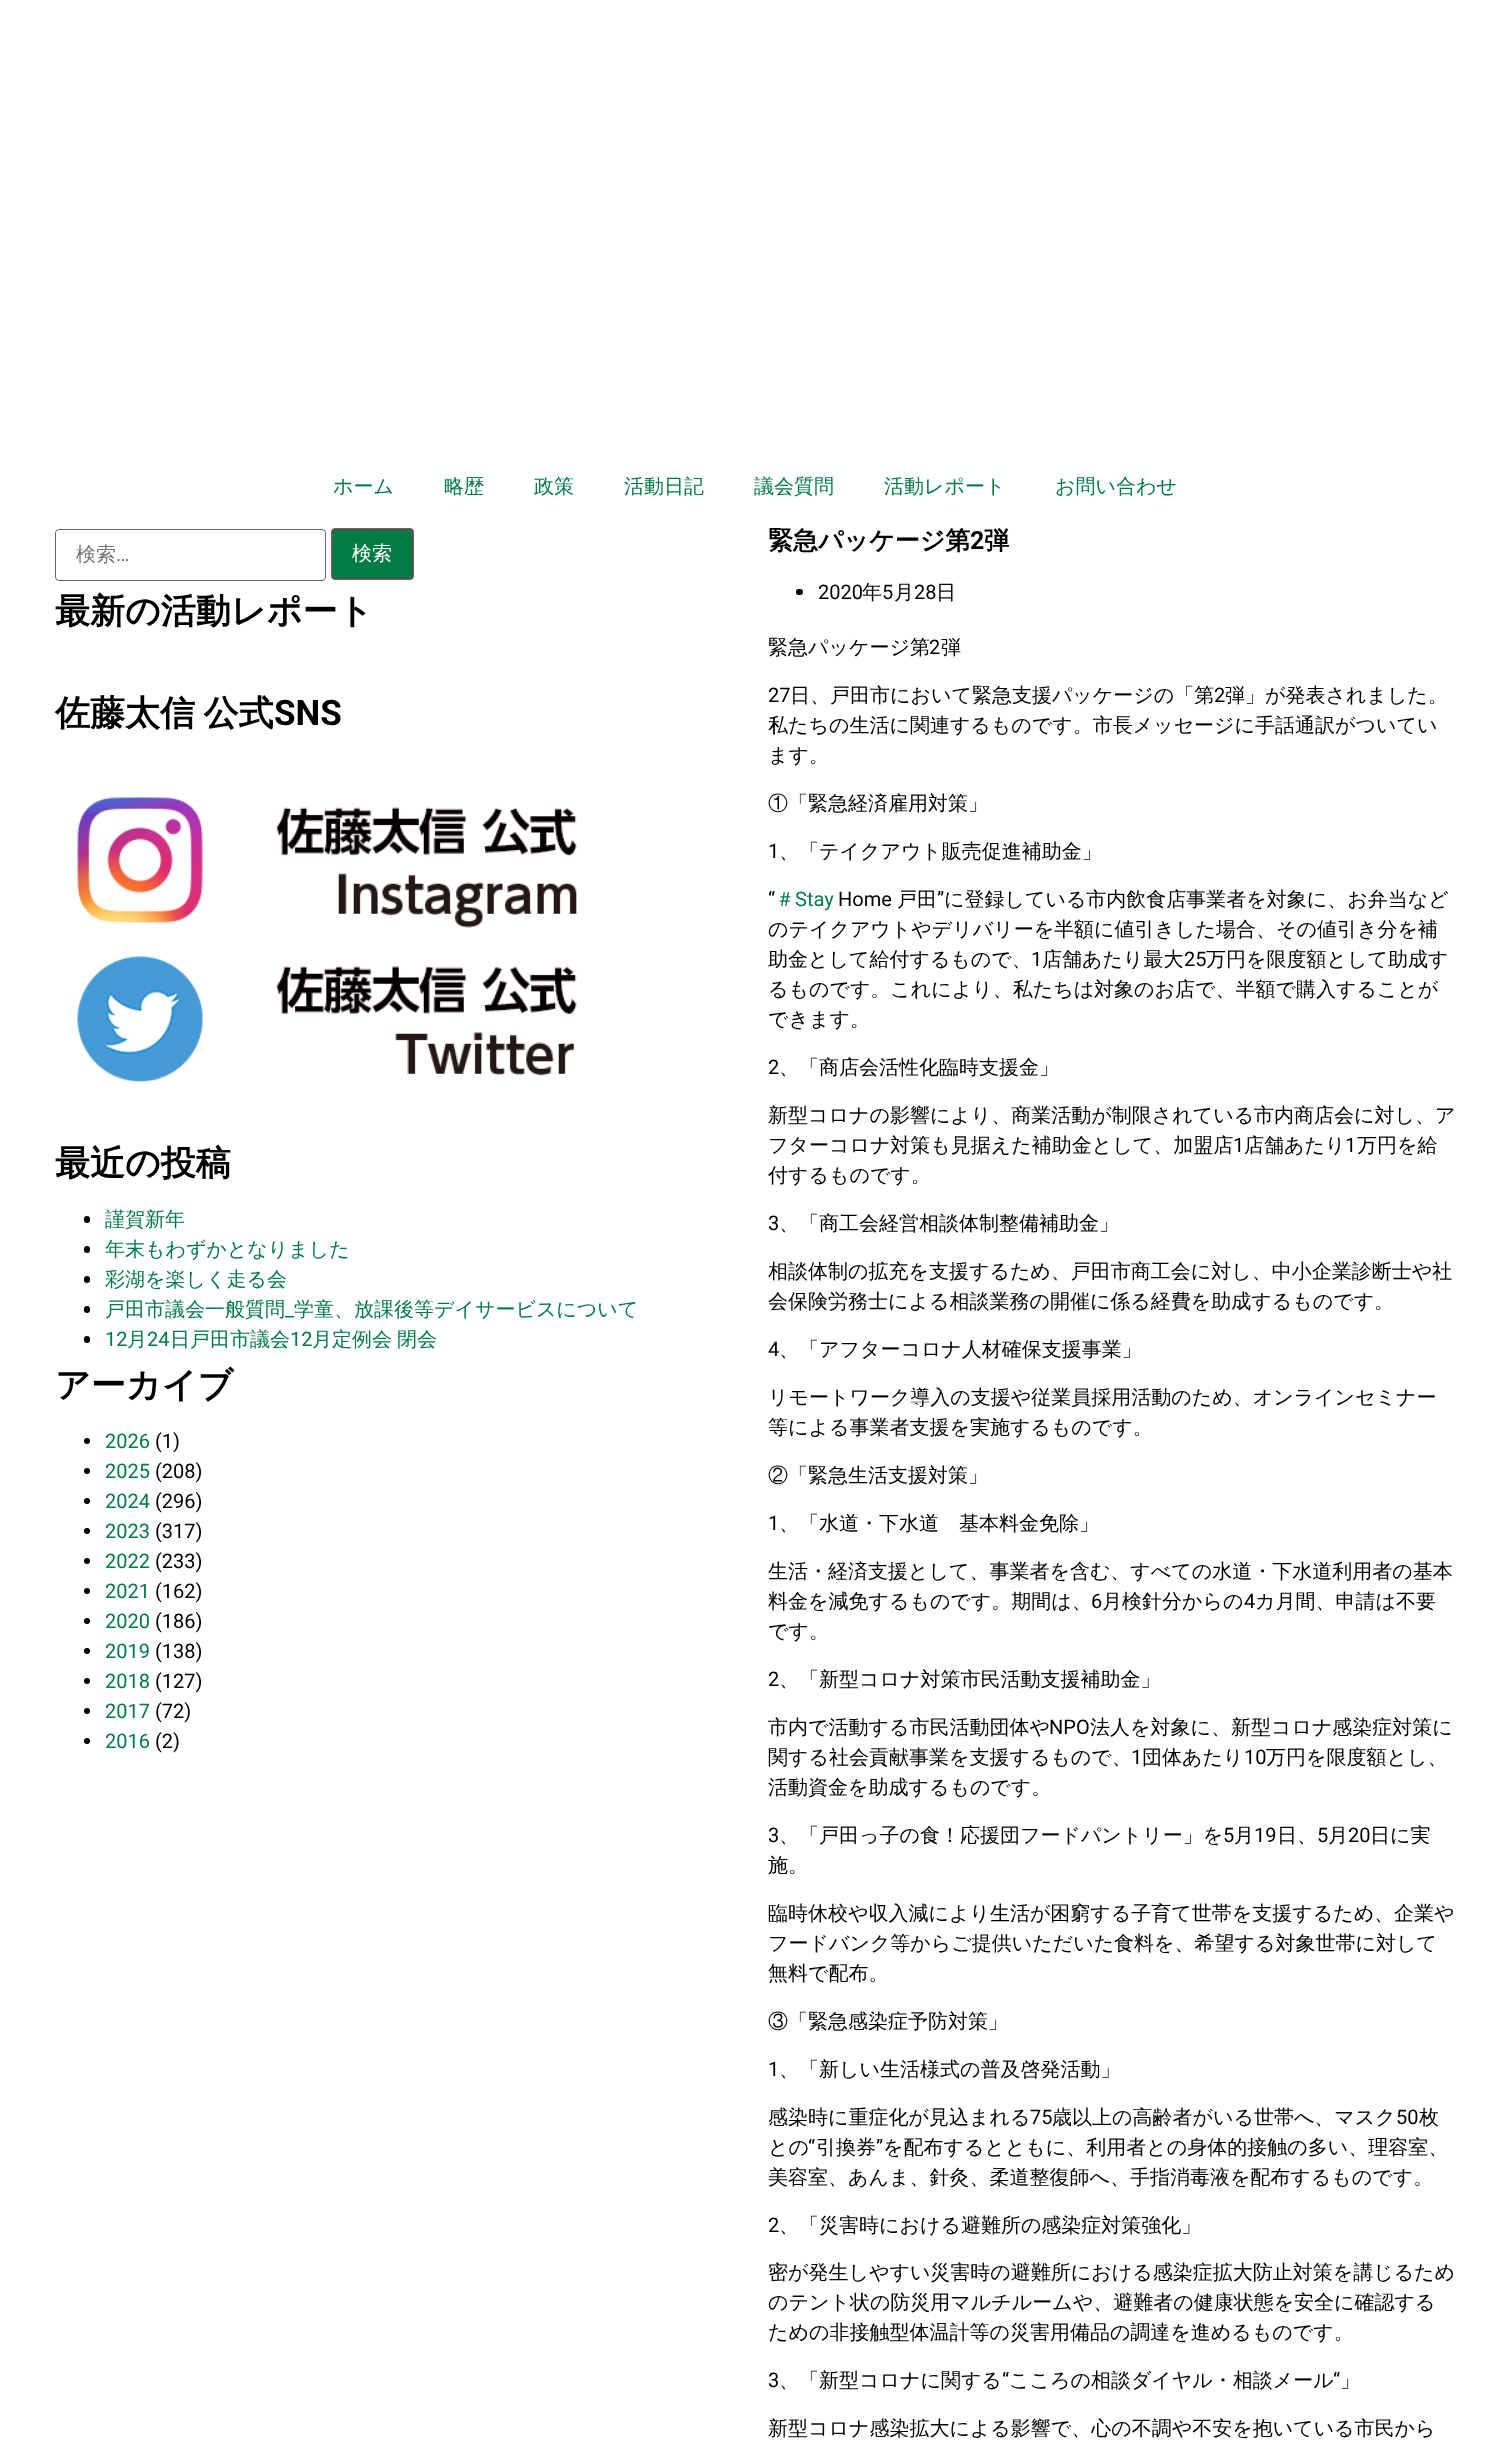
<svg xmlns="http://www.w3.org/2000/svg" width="1510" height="2456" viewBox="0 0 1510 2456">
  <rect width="100%" height="100%" fill="#fff"/>
  <rect x="55.5" y="529.5" width="270" height="51" rx="3.5" fill="none" stroke="#666"/>
  <rect x="331.5" y="528.5" width="82" height="51" rx="3.5" fill="#007b44" stroke="#c36"/>
  <image x="77" y="797" width="500" height="131" href="img/1.png"/>
  <image x="77" y="956" width="500" height="126" href="img/2.png"/>
  <rect x="84" y="1216" width="6" height="7" rx="3" fill="#000"/>
  <rect x="84" y="1246" width="6" height="7" rx="3" fill="#000"/>
  <rect x="84" y="1276" width="6" height="7" rx="3" fill="#000"/>
  <rect x="84" y="1306" width="6" height="7" rx="3" fill="#000"/>
  <rect x="84" y="1336" width="6" height="7" rx="3" fill="#000"/>
  <circle cx="87" cy="1441" r="3" fill="#000"/>
  <circle cx="87" cy="1471" r="3" fill="#000"/>
  <circle cx="87" cy="1501" r="3" fill="#000"/>
  <circle cx="87" cy="1531" r="3" fill="#000"/>
  <circle cx="87" cy="1561" r="3" fill="#000"/>
  <circle cx="87" cy="1591" r="3" fill="#000"/>
  <circle cx="87" cy="1621" r="3" fill="#000"/>
  <circle cx="87" cy="1651" r="3" fill="#000"/>
  <circle cx="87" cy="1681" r="3" fill="#000"/>
  <circle cx="87" cy="1711" r="3" fill="#000"/>
  <circle cx="87" cy="1741" r="3" fill="#000"/>
  <rect x="796" y="589" width="7" height="6" rx="3" fill="#000"/>
  <g font-family="WenQuanYi Zen Hei" font-size="20" font-weight="500" fill="#007b44">
    <text x="333" y="493">ホーム</text>
    <text x="444" y="493">略歴</text>
    <text x="534" y="493">政策</text>
    <text x="624" y="493">活動日記</text>
    <text x="754" y="493">議会質問</text>
    <text x="884" y="493">活動レポート</text>
    <text x="1055" y="493">お問い合わせ</text>
  </g>
  <text x="76" y="561" font-family="WenQuanYi Zen Hei" font-size="20" font-weight="500" fill="#757575">検索</text>
  <text x="116" y="561" font-family="Roboto" font-size="20" fill="#757575">…</text>
  <text x="352" y="560" font-family="WenQuanYi Zen Hei" font-size="20" font-weight="500" fill="#fff">検索</text>
  <g font-family="WenQuanYi Zen Hei" font-size="35" font-weight="bold" fill="#000">
    <text x="55" y="623">最新の活動レポート</text>
    <text x="55" y="725" word-spacing="-2">佐藤太信 公式</text>
  </g>
  <text x="274" y="725" font-family="Roboto" font-size="35" font-weight="bold" fill="#000">SNS</text>
  <text x="55" y="1175" font-family="WenQuanYi Zen Hei" font-size="35" font-weight="bold" fill="#000">最近の投稿</text>
  <g font-family="WenQuanYi Zen Hei" font-size="20" font-weight="500" fill="#007b44">
    <text x="105" y="1226">謹賀新年</text>
    <text x="105" y="1256">年末もわずかとなりました</text>
    <text x="105" y="1286">彩湖を楽しく走る会</text>
    <text x="105" y="1316">戸田市議会一般質問</text>
    <text x="294" y="1316">学童、放課後等デイサービスについて</text>
  </g>
  <g font-family="Roboto" font-size="20" fill="#007b44">
    <text x="285" y="1316">_</text>
    <text x="105" y="1346">12</text>
  </g>
  <text x="127" y="1346" font-family="WenQuanYi Zen Hei" font-size="20" font-weight="500" fill="#007b44">月</text>
  <text x="147" y="1346" font-family="Roboto" font-size="20" fill="#007b44">24</text>
  <text x="170" y="1346" font-family="WenQuanYi Zen Hei" font-size="20" font-weight="500" fill="#007b44">日戸田市議会</text>
  <text x="290" y="1346" font-family="Roboto" font-size="20" fill="#007b44">12</text>
  <text x="312" y="1346" word-spacing="-1" font-family="WenQuanYi Zen Hei" font-size="20" font-weight="500" fill="#007b44">月定例会 閉会</text>
  <text x="55" y="1397" font-family="WenQuanYi Zen Hei" font-size="35" font-weight="bold" fill="#000">アーカイブ</text>
  <text x="105" y="1448" font-family="Roboto" font-size="20" fill="#007b44">2026</text>
  <text x="155" y="1448" font-family="Roboto" font-size="20" fill="#000">(1)</text>
  <text x="105" y="1478" font-family="Roboto" font-size="20" fill="#007b44">2025</text>
  <text x="155" y="1478" font-family="Roboto" font-size="20" fill="#000">(208)</text>
  <text x="105" y="1508" font-family="Roboto" font-size="20" fill="#007b44">2024</text>
  <text x="155" y="1508" font-family="Roboto" font-size="20" fill="#000">(296)</text>
  <text x="105" y="1538" font-family="Roboto" font-size="20" fill="#007b44">2023</text>
  <text x="155" y="1538" font-family="Roboto" font-size="20" fill="#000">(317)</text>
  <text x="105" y="1568" font-family="Roboto" font-size="20" fill="#007b44">2022</text>
  <text x="155" y="1568" font-family="Roboto" font-size="20" fill="#000">(233)</text>
  <text x="105" y="1598" font-family="Roboto" font-size="20" fill="#007b44">2021</text>
  <text x="155" y="1598" font-family="Roboto" font-size="20" fill="#000">(162)</text>
  <text x="105" y="1628" font-family="Roboto" font-size="20" fill="#007b44">2020</text>
  <text x="155" y="1628" font-family="Roboto" font-size="20" fill="#000">(186)</text>
  <text x="105" y="1658" font-family="Roboto" font-size="20" fill="#007b44">2019</text>
  <text x="155" y="1658" font-family="Roboto" font-size="20" fill="#000">(138)</text>
  <text x="105" y="1688" font-family="Roboto" font-size="20" fill="#007b44">2018</text>
  <text x="155" y="1688" font-family="Roboto" font-size="20" fill="#000">(127)</text>
  <text x="105" y="1718" font-family="Roboto" font-size="20" fill="#007b44">2017</text>
  <text x="155" y="1718" font-family="Roboto" font-size="20" fill="#000">(72)</text>
  <text x="105" y="1748" font-family="Roboto" font-size="20" fill="#007b44">2016</text>
  <text x="155" y="1748" font-family="Roboto" font-size="20" fill="#000">(2)</text>
  <text x="768" y="549" font-family="WenQuanYi Zen Hei" font-size="25" font-weight="bold" fill="#000">緊急パッケージ第</text>
  <text x="970" y="549" font-family="Roboto" font-size="25" font-weight="bold" fill="#000">2</text>
  <text x="984" y="549" font-family="WenQuanYi Zen Hei" font-size="25" font-weight="bold" fill="#000">弾</text>
  <text x="818" y="599" font-family="Roboto" font-size="20" fill="#000">2020</text>
  <text x="862" y="599" font-family="WenQuanYi Zen Hei" font-size="20" font-weight="500" fill="#000">年</text>
  <text x="882" y="599" font-family="Roboto" font-size="20" fill="#000">5</text>
  <text x="894" y="599" font-family="WenQuanYi Zen Hei" font-size="20" font-weight="500" fill="#000">月</text>
  <text x="914" y="599" font-family="Roboto" font-size="20" fill="#000">28</text>
  <g font-family="WenQuanYi Zen Hei" font-size="20" font-weight="500" fill="#000">
    <text x="936" y="599">日</text>
    <text x="768" y="654">緊急パッケージ第</text>
  </g>
  <text x="929" y="654" font-family="Roboto" font-size="20" fill="#000">2</text>
  <text x="941" y="654" font-family="WenQuanYi Zen Hei" font-size="20" font-weight="500" fill="#000">弾</text>
  <text x="768" y="702" font-family="Roboto" font-size="20" fill="#000">27</text>
  <text x="790" y="702" font-family="WenQuanYi Zen Hei" font-size="20" font-weight="500" fill="#000">日、戸田市において緊急支援パッケージの「第</text>
  <text x="1214" y="702" font-family="Roboto" font-size="20" fill="#000">2</text>
  <g font-family="WenQuanYi Zen Hei" font-size="20" font-weight="500" fill="#000">
    <text x="1225" y="702">弾」が発表されました。</text>
    <text x="768" y="732">私たちの生活に関連するものです。市長メッセージに手話通訳がついてい</text>
    <text x="768" y="762">ます。</text>
    <text x="768" y="810">①「緊急経済雇用対策」</text>
  </g>
  <text x="768" y="858" font-family="Roboto" font-size="20" fill="#000">1</text>
  <text x="779" y="858" font-family="WenQuanYi Zen Hei" font-size="20" font-weight="500" fill="#000">、「テイクアウト販売促進補助金」</text>
  <text x="768" y="906" font-family="Roboto" font-size="20" fill="#000">“</text>
  <text x="775" y="906" font-family="WenQuanYi Zen Hei" font-size="20" font-weight="500" fill="#007b44">＃</text>
  <text x="795" y="906" font-family="Roboto" font-size="20" fill="#007b44">Stay</text>
  <text x="838" y="906" font-family="Roboto" font-size="20" fill="#000">Home</text>
  <text x="897" y="906" font-family="WenQuanYi Zen Hei" font-size="20" font-weight="500" fill="#000">戸田</text>
  <text x="937" y="906" font-family="Roboto" font-size="20" fill="#000">”</text>
  <g font-family="WenQuanYi Zen Hei" font-size="20" font-weight="500" fill="#000">
    <text x="944" y="906">に登録している市内飲食店事業者を対象に、お弁当など</text>
    <text x="768" y="936">のテイクアウトやデリバリーを半額に値引きした場合、その値引き分を補</text>
    <text x="768" y="966">助金として給付するもので、</text>
  </g>
  <text x="1031" y="966" font-family="Roboto" font-size="20" fill="#000">1</text>
  <text x="1042" y="966" font-family="WenQuanYi Zen Hei" font-size="20" font-weight="500" fill="#000">店舗あたり最大</text>
  <text x="1184" y="966" font-family="Roboto" font-size="20" fill="#000">25</text>
  <g font-family="WenQuanYi Zen Hei" font-size="20" font-weight="500" fill="#000">
    <text x="1206" y="966">万円を限度額として助成す</text>
    <text x="768" y="996">るものです。これにより、私たちは対象のお店で、半額で購入することが</text>
    <text x="768" y="1026">できます。</text>
  </g>
  <text x="768" y="1074" font-family="Roboto" font-size="20" fill="#000">2</text>
  <g font-family="WenQuanYi Zen Hei" font-size="20" font-weight="500" fill="#000">
    <text x="779" y="1074">、「商店会活性化臨時支援金」</text>
    <text x="768" y="1122">新型コロナの影響により、商業活動が制限されている市内商店会に対し、ア</text>
    <text x="768" y="1152">フターコロナ対策も見据えた補助金として、加盟店</text>
  </g>
  <text x="1233" y="1152" font-family="Roboto" font-size="20" fill="#000">1</text>
  <text x="1244" y="1152" font-family="WenQuanYi Zen Hei" font-size="20" font-weight="500" fill="#000">店舗あたり</text>
  <text x="1345" y="1152" font-family="Roboto" font-size="20" fill="#000">1</text>
  <g font-family="WenQuanYi Zen Hei" font-size="20" font-weight="500" fill="#000">
    <text x="1357" y="1152">万円を給</text>
    <text x="768" y="1182">付するものです。</text>
  </g>
  <text x="768" y="1230" font-family="Roboto" font-size="20" fill="#000">3</text>
  <g font-family="WenQuanYi Zen Hei" font-size="20" font-weight="500" fill="#000">
    <text x="779" y="1230">、「商工会経営相談体制整備補助金」</text>
    <text x="768" y="1278">相談体制の拡充を支援するため、戸田市商工会に対し、中小企業診断士や社</text>
    <text x="768" y="1308">会保険労務士による相談業務の開催に係る経費を助成するものです。</text>
  </g>
  <text x="768" y="1356" font-family="Roboto" font-size="20" fill="#000">4</text>
  <g font-family="WenQuanYi Zen Hei" font-size="20" font-weight="500" fill="#000">
    <text x="779" y="1356">、「アフターコロナ人材確保支援事業」</text>
    <text x="768" y="1404">リモートワーク導入の支援や従業員採用活動のため、オンラインセミナー</text>
    <text x="768" y="1434">等による事業者支援を実施するものです。</text>
    <text x="768" y="1482">②「緊急生活支援対策」</text>
  </g>
  <text x="768" y="1530" font-family="Roboto" font-size="20" fill="#000">1</text>
  <g font-family="WenQuanYi Zen Hei" font-size="20" font-weight="500" fill="#000">
    <text x="779" y="1530">、「水道・下水道　基本料金免除」</text>
    <text x="768" y="1578">生活・経済支援として、事業者を含む、すべての水道・下水道利用者の基本</text>
    <text x="768" y="1608">料金を減免するものです。期間は、</text>
  </g>
  <text x="1091" y="1608" font-family="Roboto" font-size="20" fill="#000">6</text>
  <text x="1102" y="1608" font-family="WenQuanYi Zen Hei" font-size="20" font-weight="500" fill="#000">月検針分からの</text>
  <text x="1244" y="1608" font-family="Roboto" font-size="20" fill="#000">4</text>
  <g font-family="WenQuanYi Zen Hei" font-size="20" font-weight="500" fill="#000">
    <text x="1255" y="1608">カ月間、申請は不要</text>
    <text x="768" y="1638">です。</text>
  </g>
  <text x="768" y="1686" font-family="Roboto" font-size="20" fill="#000">2</text>
  <g font-family="WenQuanYi Zen Hei" font-size="20" font-weight="500" fill="#000">
    <text x="779" y="1686">、「新型コロナ対策市民活動支援補助金」</text>
    <text x="768" y="1734">市内で活動する市民活動団体や</text>
  </g>
  <text x="1049" y="1734" font-family="Roboto" font-size="20" fill="#000">NPO</text>
  <g font-family="WenQuanYi Zen Hei" font-size="20" font-weight="500" fill="#000">
    <text x="1090" y="1734">法人を対象に、新型コロナ感染症対策に</text>
    <text x="768" y="1764">関する社会貢献事業を支援するもので、</text>
  </g>
  <text x="1131" y="1764" font-family="Roboto" font-size="20" fill="#000">1</text>
  <text x="1142" y="1764" font-family="WenQuanYi Zen Hei" font-size="20" font-weight="500" fill="#000">団体あたり</text>
  <text x="1244" y="1764" font-family="Roboto" font-size="20" fill="#000">10</text>
  <g font-family="WenQuanYi Zen Hei" font-size="20" font-weight="500" fill="#000">
    <text x="1266" y="1764">万円を限度額とし、</text>
    <text x="768" y="1794">活動資金を助成するものです。</text>
  </g>
  <text x="768" y="1842" font-family="Roboto" font-size="20" fill="#000">3</text>
  <text x="779" y="1842" font-family="WenQuanYi Zen Hei" font-size="20" font-weight="500" fill="#000">、「戸田っ子の食！応援団フードパントリー」を</text>
  <text x="1223" y="1842" font-family="Roboto" font-size="20" fill="#000">5</text>
  <text x="1234" y="1842" font-family="WenQuanYi Zen Hei" font-size="20" font-weight="500" fill="#000">月</text>
  <text x="1254" y="1842" font-family="Roboto" font-size="20" fill="#000">19</text>
  <text x="1277" y="1842" font-family="WenQuanYi Zen Hei" font-size="20" font-weight="500" fill="#000">日、</text>
  <text x="1317" y="1842" font-family="Roboto" font-size="20" fill="#000">5</text>
  <text x="1328" y="1842" font-family="WenQuanYi Zen Hei" font-size="20" font-weight="500" fill="#000">月</text>
  <text x="1348" y="1842" font-family="Roboto" font-size="20" fill="#000">20</text>
  <g font-family="WenQuanYi Zen Hei" font-size="20" font-weight="500" fill="#000">
    <text x="1370" y="1842">日に実</text>
    <text x="768" y="1872">施。</text>
    <text x="768" y="1920">臨時休校や収入減により生活が困窮する子育て世帯を支援するため、企業や</text>
    <text x="768" y="1950">フードバンク等からご提供いただいた食料を、希望する対象世帯に対して</text>
    <text x="768" y="1980">無料で配布。</text>
    <text x="768" y="2028">③「緊急感染症予防対策」</text>
  </g>
  <text x="768" y="2076" font-family="Roboto" font-size="20" fill="#000">1</text>
  <g font-family="WenQuanYi Zen Hei" font-size="20" font-weight="500" fill="#000">
    <text x="779" y="2076">、「新しい生活様式の普及啓発活動」</text>
    <text x="768" y="2124">感染時に重症化が見込まれる</text>
  </g>
  <text x="1030" y="2124" font-family="Roboto" font-size="20" fill="#000">75</text>
  <text x="1052" y="2124" font-family="WenQuanYi Zen Hei" font-size="20" font-weight="500" fill="#000">歳以上の高齢者がいる世帯へ、マスク</text>
  <text x="1396" y="2124" font-family="Roboto" font-size="20" fill="#000">50</text>
  <g font-family="WenQuanYi Zen Hei" font-size="20" font-weight="500" fill="#000">
    <text x="1419" y="2124">枚</text>
    <text x="768" y="2154">との</text>
  </g>
  <text x="808" y="2154" font-family="Roboto" font-size="20" fill="#000">“</text>
  <text x="816" y="2154" font-family="WenQuanYi Zen Hei" font-size="20" font-weight="500" fill="#000">引換券</text>
  <text x="876" y="2154" font-family="Roboto" font-size="20" fill="#000">”</text>
  <g font-family="WenQuanYi Zen Hei" font-size="20" font-weight="500" fill="#000">
    <text x="883" y="2154">を配布するとともに、利用者との身体的接触の多い、理容室、</text>
    <text x="768" y="2184">美容室、あんま、針灸、柔道整復師へ、手指消毒液を配布するものです。</text>
  </g>
  <text x="768" y="2232" font-family="Roboto" font-size="20" fill="#000">2</text>
  <g font-family="WenQuanYi Zen Hei" font-size="20" font-weight="500" fill="#000">
    <text x="779" y="2232">、「災害時における避難所の感染症対策強化」</text>
    <text x="768" y="2279">密が発生しやすい災害時の避難所における感染症拡大防止対策を講じるため</text>
    <text x="768" y="2309">のテント状の防災用マルチルームや、避難者の健康状態を安全に確認する</text>
    <text x="768" y="2339">ための非接触型体温計等の災害用備品の調達を進めるものです。</text>
  </g>
  <text x="768" y="2387" font-family="Roboto" font-size="20" fill="#000">3</text>
  <text x="779" y="2387" font-family="WenQuanYi Zen Hei" font-size="20" font-weight="500" fill="#000">、「新型コロナに関する</text>
  <text x="1002" y="2387" font-family="Roboto" font-size="20" fill="#000">“</text>
  <text x="1009" y="2387" font-family="WenQuanYi Zen Hei" font-size="20" font-weight="500" fill="#000">こころの相談ダイヤル・相談メール</text>
  <text x="1333" y="2387" font-family="Roboto" font-size="20" fill="#000">“</text>
  <g font-family="WenQuanYi Zen Hei" font-size="20" font-weight="500" fill="#000">
    <text x="1340" y="2387">」</text>
    <text x="768" y="2435">新型コロナ感染拡大による影響で、心の不調や不安を抱いている市民から</text>
  </g>
</svg>
